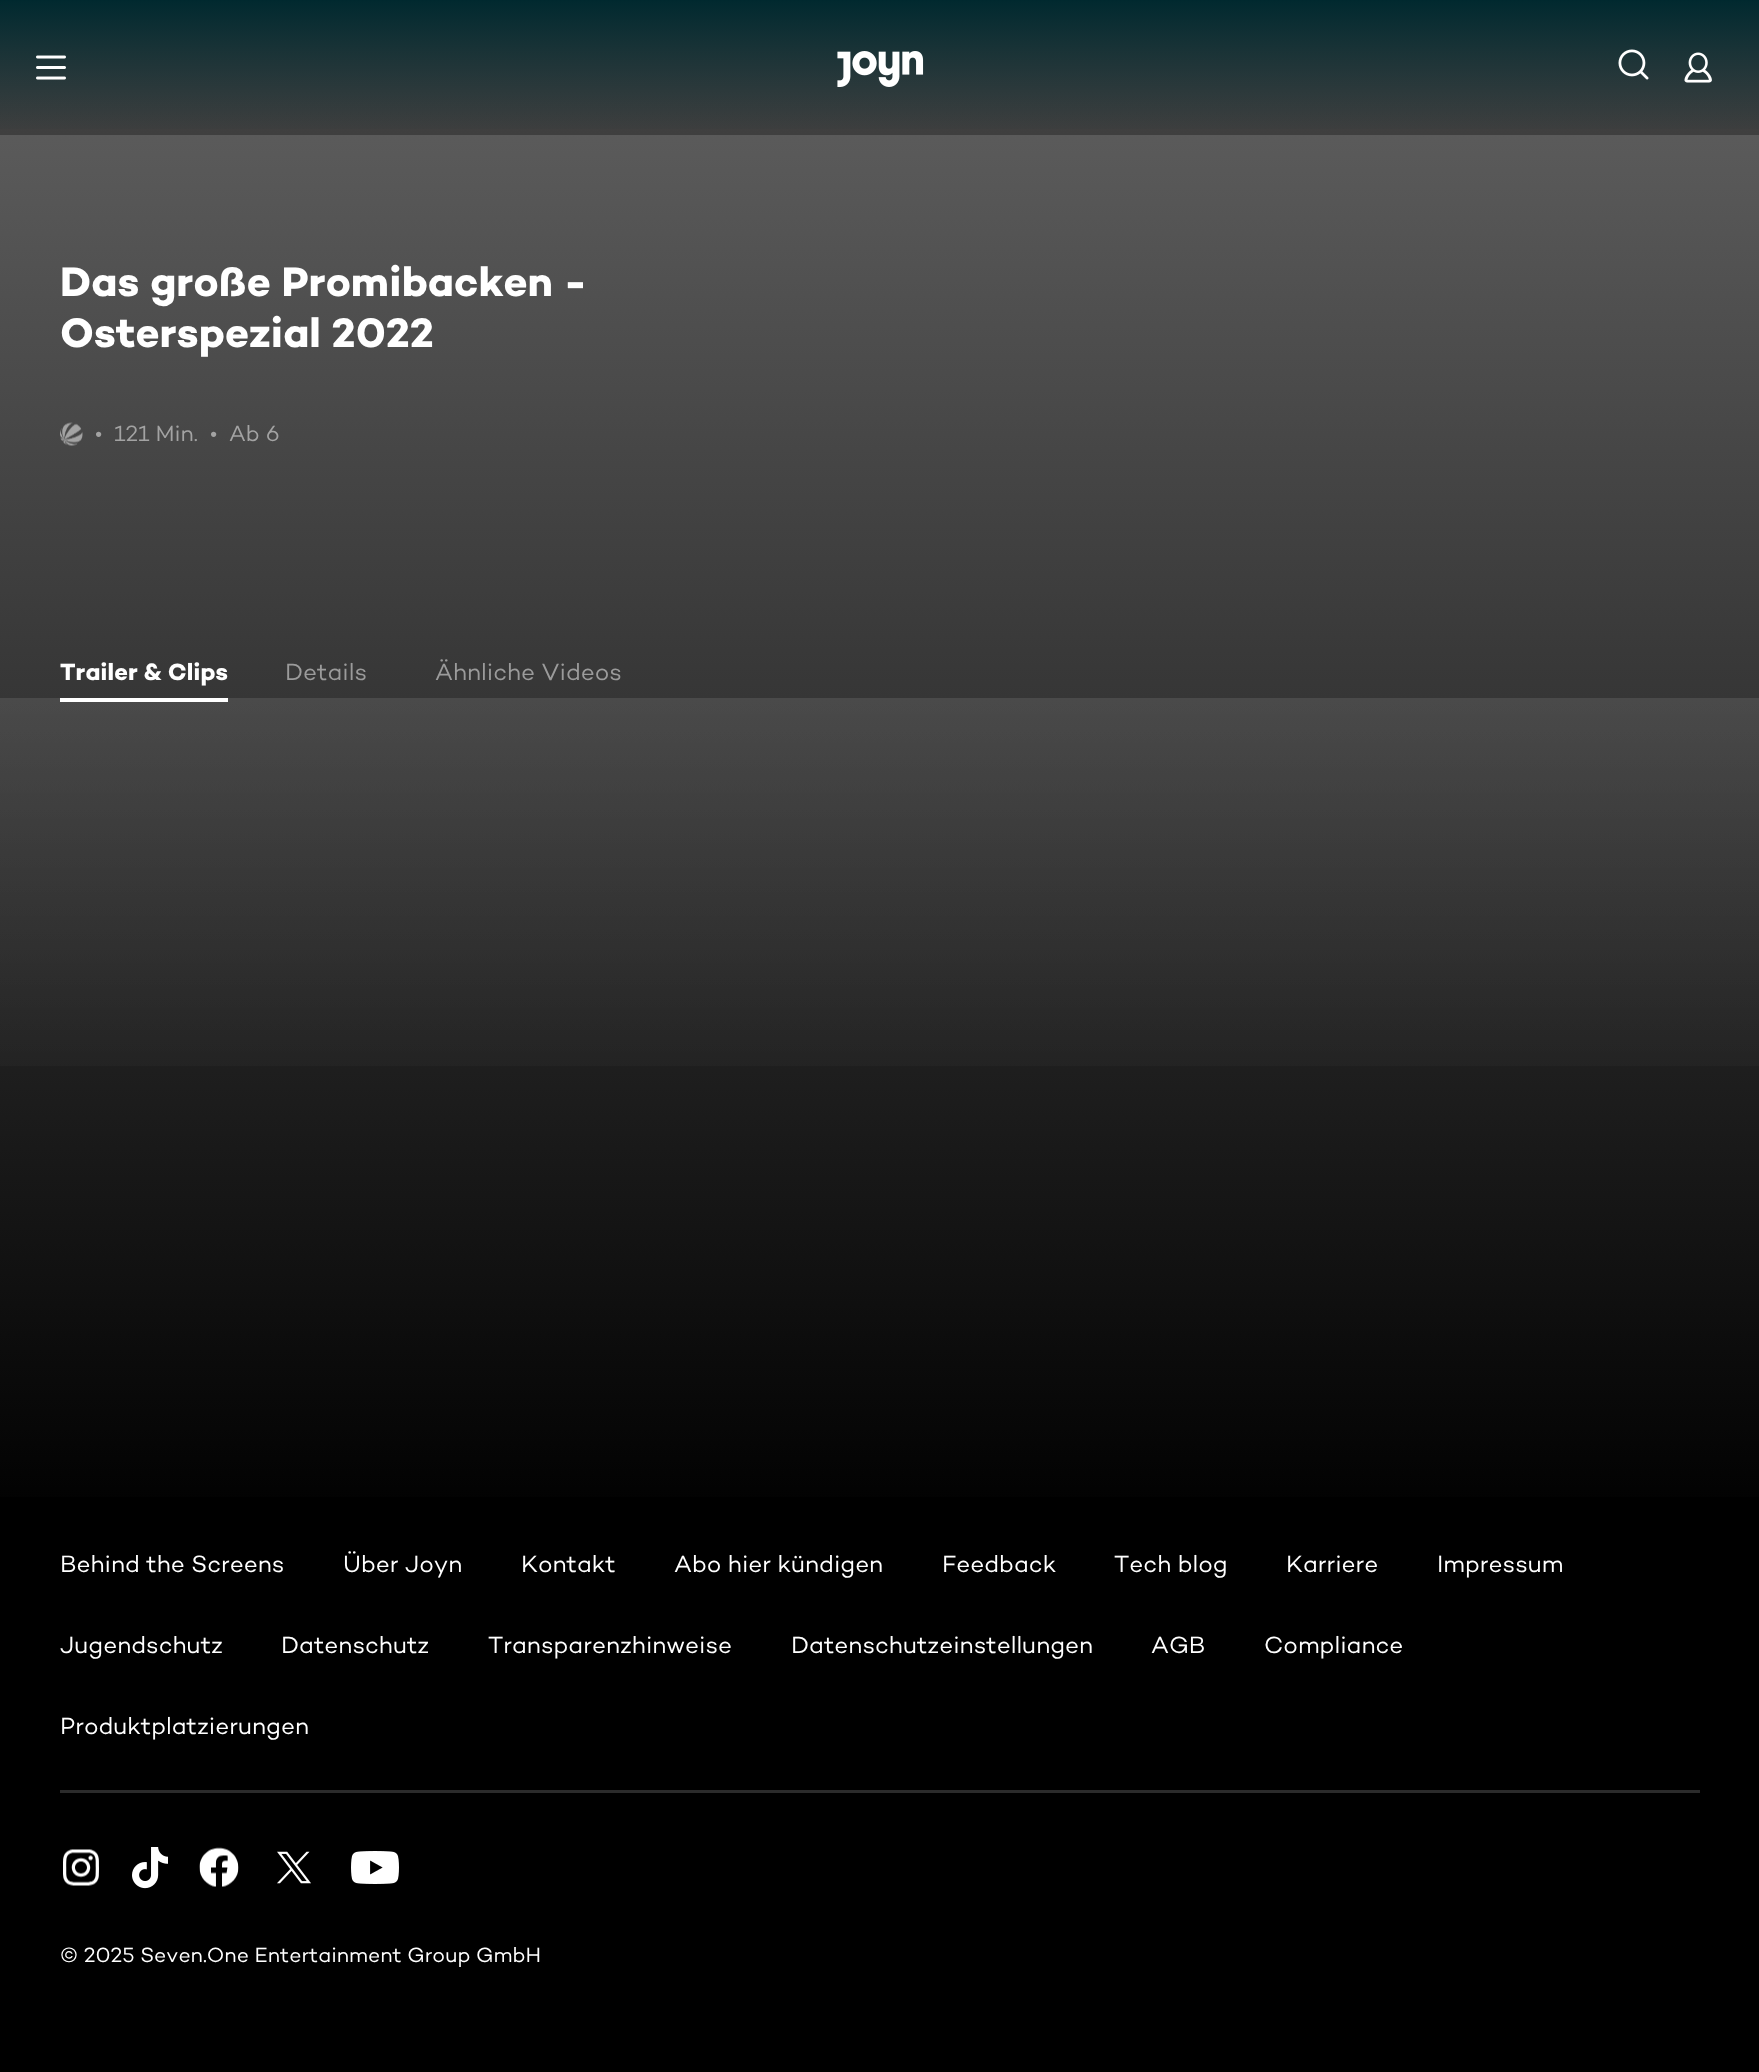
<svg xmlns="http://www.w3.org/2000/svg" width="1759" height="2072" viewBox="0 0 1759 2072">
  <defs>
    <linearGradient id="g1" gradientUnits="userSpaceOnUse" x1="880" y1="0" x2="880" y2="1536"><stop offset="0" stop-color="#454545"/><stop offset="1" stop-color="#000"/></linearGradient>
    <linearGradient id="g2" gradientUnits="userSpaceOnUse" x1="880" y1="0" x2="880" y2="135"><stop offset="0" stop-color="#00292f"/><stop offset="1" stop-color="#00292f" stop-opacity="0"/></linearGradient>
    <linearGradient id="g3" gradientUnits="userSpaceOnUse" x1="880" y1="0" x2="880" y2="1536"><stop offset="0" stop-color="#636363"/><stop offset="1" stop-color="#000"/></linearGradient>
    <linearGradient id="g4" gradientUnits="userSpaceOnUse" x1="880" y1="1167" x2="880" y2="698"><stop offset="0" stop-color="#fff" stop-opacity="0"/><stop offset="1" stop-color="#fff" stop-opacity="0.1"/></linearGradient>
  </defs>
  <rect width="100%" height="100%" fill="#000"/>
  <path d="M0 1h1759v134H0z" fill="url(#g1)"/>
  <path d="M0 0h1759v129H0z" fill="url(#g2)"/>
  <image x="36" y="55" width="30" height="25" href="img/1.png"/>
  <image x="837" y="51" width="87" height="36" href="img/2.png"/>
  <image x="1618" y="49" width="31" height="31" href="img/3.png"/>
  <image x="1684" y="52" width="28" height="31" href="img/4.png"/>
  <path d="M0 135h1759v1362H0z" fill="url(#g3)"/>
  <image x="60" y="422" width="23" height="24" href="img/5.png"/>
  <path d="M0 698h1759v368H0z" fill="url(#g4)"/>
  <path d="M60 698h168v4H60z" fill="#fff"/>
  <path d="M60 1790h1640v3H60z" fill="#2b2b2b"/>
  <image x="63" y="1849" width="36" height="37" href="img/6.png"/>
  <image x="132" y="1847" width="36" height="42" href="img/7.png"/>
  <image x="199" y="1847" width="40" height="40" href="img/8.png"/>
  <image x="277" y="1851" width="34" height="33" href="img/9.png"/>
  <image x="351" y="1851" width="48" height="33" href="img/10.png"/>
  <g font-family="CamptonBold" font-size="42" font-weight="bold" fill="#fff">
    <text x="60" y="296">Das große Promibacken -</text>
    <text x="60" y="347">Osterspezial 2022</text>
  </g>
  <g font-family="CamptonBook" font-size="22.5" fill="#a3a3a3">
    <text x="95" y="441">•</text>
    <text x="114" y="441">121 Min.</text>
    <text x="210" y="441">•</text>
    <text x="229" y="441">Ab 6</text>
  </g>
  <text x="60" y="680" font-family="CamptonBold" font-size="24" font-weight="bold" fill="#fff">Trailer &amp; Clips</text>
  <g font-family="CamptonBook" font-size="24" fill="#9b9b9b">
    <text x="285" y="680">Details</text>
    <text x="435" y="680">Ähnliche Videos</text>
  </g>
  <g font-family="CamptonBook" font-size="24" fill="#fff">
    <text x="60" y="1572">Behind the Screens</text>
    <text x="343" y="1572">Über Joyn</text>
    <text x="521" y="1572">Kontakt</text>
    <text x="674" y="1572">Abo hier kündigen</text>
    <text x="942" y="1572">Feedback</text>
    <text x="1114" y="1572">Tech blog</text>
    <text x="1286" y="1572">Karriere</text>
    <text x="1437" y="1572">Impressum</text>
    <text x="60" y="1653">Jugendschutz</text>
    <text x="281" y="1653">Datenschutz</text>
    <text x="488" y="1653">Transparenzhinweise</text>
    <text x="791" y="1653">Datenschutzeinstellungen</text>
    <text x="1151" y="1653">AGB</text>
    <text x="1264" y="1653">Compliance</text>
    <text x="60" y="1734">Produktplatzierungen</text>
  </g>
  <text x="60" y="1962" font-family="CamptonBook" font-size="21" fill="#fff">© 2025 Seven.One Entertainment Group GmbH</text>
</svg>
